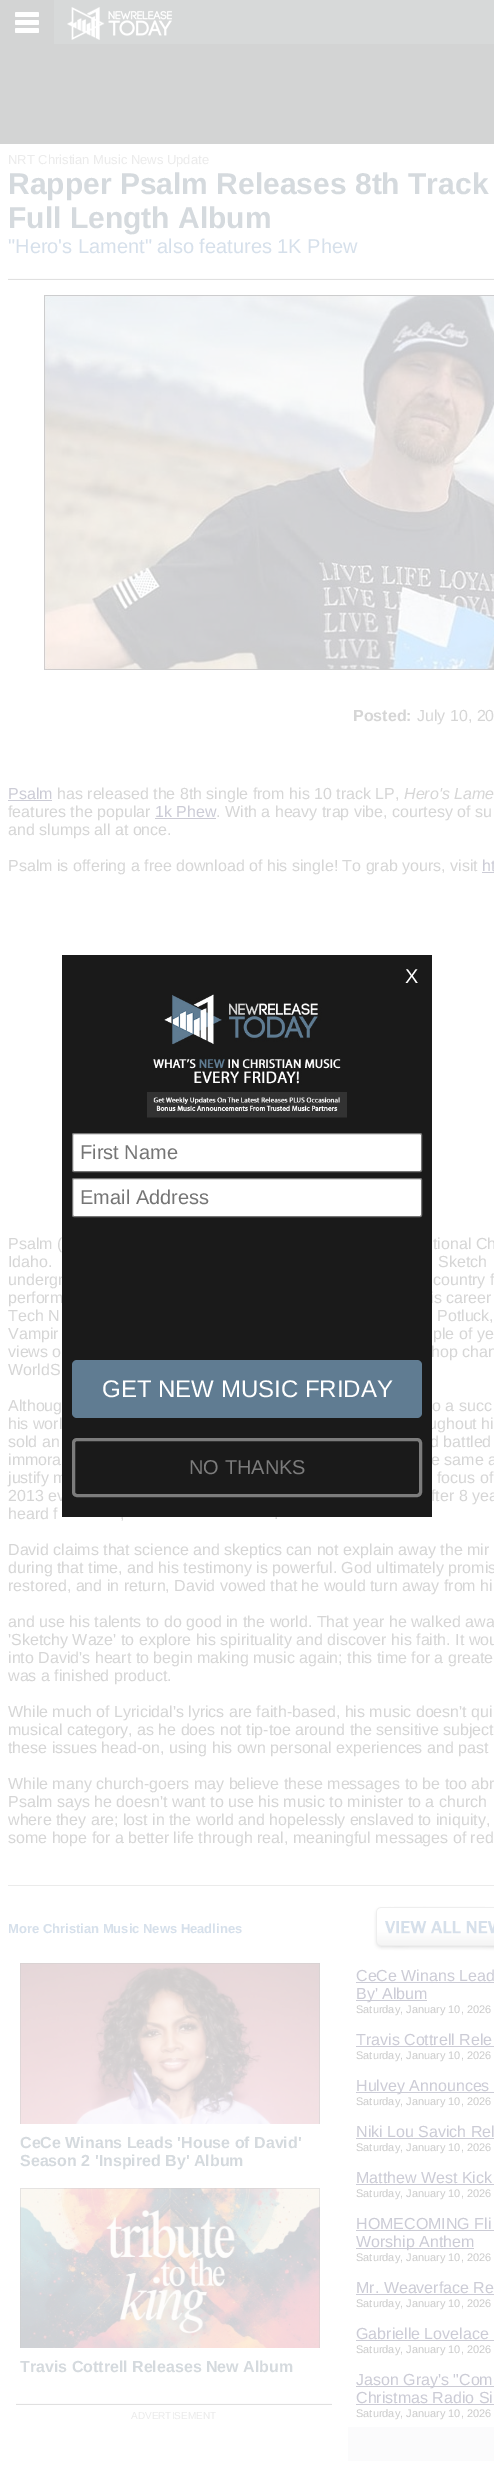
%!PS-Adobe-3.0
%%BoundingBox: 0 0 494 2472
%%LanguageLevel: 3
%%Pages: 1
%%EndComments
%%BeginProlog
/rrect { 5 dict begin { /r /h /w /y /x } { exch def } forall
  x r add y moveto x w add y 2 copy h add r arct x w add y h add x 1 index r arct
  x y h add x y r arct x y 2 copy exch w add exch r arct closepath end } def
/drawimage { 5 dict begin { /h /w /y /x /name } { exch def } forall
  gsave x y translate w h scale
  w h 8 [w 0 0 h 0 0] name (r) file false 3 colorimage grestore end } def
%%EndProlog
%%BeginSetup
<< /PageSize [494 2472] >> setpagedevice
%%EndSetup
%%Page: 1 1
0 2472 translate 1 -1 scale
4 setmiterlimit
0.827 0.831 0.831 setrgbcolor
0 0 494 2472 rectfill
0.843 0.851 0.851 setrgbcolor
54 0 440 44 rectfill
(images/1.raw) 15 12 24 21 drawimage
(images/2.raw) 67 7 105 33 drawimage
1 setgray
0 144 494 2328 rectfill
0.988 setgray
8 278 486 1 rectfill
0.878 setgray
8 279 486 1 rectfill
(images/3.raw) 44 295 450 375 drawimage
0.922 setgray
8 1885 486 1 rectfill
0.8 0.8 0.839 setrgbcolor
8 800 44 1 rectfill
155 818 61 1 rectfill
482 872 12 1 rectfill
(images/4.raw) 373 1906 121 45 drawimage
(images/5.raw) 20 1963 300 161 drawimage
(images/6.raw) 20 2188 300 160 drawimage
0.988 setgray
16 2403 316 1 rectfill
0.878 setgray
16 2404 316 1 rectfill
0.8 0.8 0.839 setrgbcolor
356 1982 138 1 rectfill
356 2000 71 1 rectfill
356 2046 138 1 rectfill
356 2092 138 1 rectfill
356 2138 138 1 rectfill
356 2184 138 1 rectfill
356 2230 138 1 rectfill
356 2248 118 1 rectfill
356 2294 138 1 rectfill
356 2340 138 1 rectfill
356 2386 138 1 rectfill
356 2404 138 1 rectfill
0.984 0.984 0.988 setrgbcolor
348 2427 146 34 rectfill
/LiberationSans-Regular [13 0 0 -13 0 0] selectfont
0.922 setgray
8 164 moveto (NRT Christian Music News Update) show
/LiberationSans-Bold [30 0 0 -30 0 0] selectfont
0.835 0.855 0.871 setrgbcolor
8 194 moveto (Rapper Psalm Releases 8th Track) show
8 228 moveto (Full Length Album) show
/LiberationSans-Regular [20 0 0 -20 0 0] selectfont
0.839 0.878 0.922 setrgbcolor
8 253 moveto ("Hero's Lament" also features 1K Phew) show
/LiberationSans-Bold [16 0 0 -16 0 0] selectfont
0.839 setgray
353 721 moveto (Posted:) show
/LiberationSans-Regular [16 0 0 -16 0 0] selectfont
417 721 moveto (July 10, 20) show
0.8 0.8 0.839 setrgbcolor
8 799 moveto (Psalm) show
0.839 setgray
57 799 moveto (has released the 8th single from his 10 track LP,) show
/LiberationSans-Italic [16 0 0 -16 0 0] selectfont
404 799 moveto (Hero's Lame) show
/LiberationSans-Regular [16 0 0 -16 0 0] selectfont
8 817 moveto (features the popular) show
0.8 0.8 0.839 setrgbcolor
155 817 moveto (1k Phew) show
0.839 setgray
216 817 moveto (. With a heavy trap vibe, courtesy of su) show
8 835 moveto (and slumps all at once.) show
8 871 moveto (Psalm is offering a free download of his single! To grab yours, visit) show
0.8 0.8 0.839 setrgbcolor
482 871 moveto (ht) show
0.839 setgray
8 1249 moveto (Psalm \() show
433 1249 moveto (tional Ch) show
8 1267 moveto (Idaho.) show
438 1267 moveto (Sketch) show
8 1285 moveto (undergr) show
433 1285 moveto (country f) show
8 1303 moveto (perform) show
430 1303 moveto (is career) show
8 1321 moveto (Tech N) show
437 1321 moveto (Potluck,) show
8 1339 moveto (Vampir) show
433 1339 moveto (ple of ye) show
8 1357 moveto (views o) show
431 1357 moveto (hop chan) show
8 1375 moveto (WorldS) show
8 1411 moveto (Althoug) show
432 1411 moveto (o a succ) show
8 1429 moveto (his worl) show
428 1429 moveto (ughout hi) show
8 1447 moveto (sold an) show
430 1447 moveto (d battled) show
8 1465 moveto (immora) show
431 1465 moveto (e same a) show
8 1483 moveto (justify m) show
437 1483 moveto (focus of) show
8 1501 moveto (2013 ev) show
431 1501 moveto (fter 8 yea) show
8 1519 moveto (heard f) show
120 1519 moveto (,) show
274 1519 moveto (.) show
8 1555 moveto (David claims that science and skeptics can not explain away the mir) show
8 1573 moveto (during that time, and his testimony is powerful. God ultimately promis) show
8 1591 moveto (restored, and in return, David vowed that he would turn away from hi) show
8 1627 moveto (and use his talents to do good in the world. That year he walked awa) show
8 1645 moveto ('Sketchy Waze' to explore his spirituality and discover his faith. It wou) show
8 1663 moveto (into David's heart to begin making music again; this time for a greate) show
8 1681 moveto (was a finished product.) show
8 1717 moveto (While much of Lyricidal's lyrics are faith-based, his music doesn't qui) show
8 1735 moveto (musical category, as he does not tip-toe around the sensitive subject) show
8 1753 moveto (these issues head-on, using his own personal experiences and past) show
8 1789 moveto (While many church-goers may believe these messages to be too abr) show
8 1807 moveto (Psalm says he doesn't want to use his music to minister to a church) show
8 1825 moveto (where they are; lost in the world and hopelessly enslaved to iniquity,) show
8 1843 moveto (some hope for a better life through real, meaningful messages of red) show
/LiberationSans-Bold [13 0 0 -13 0 0] selectfont
0.839 0.878 0.922 setrgbcolor
8 1933 moveto (More Christian Music News Headlines) show
/LiberationSans-Bold [16 0 0 -16 0 0] selectfont
0.835 0.855 0.871 setrgbcolor
20 2148 moveto (CeCe Winans Leads 'House of David') show
20 2166 moveto (Season 2 'Inspired By' Album) show
20 2372 moveto (Travis Cottrell Releases New Album) show
/LiberationSans-Regular [10 0 0 -10 0 0] selectfont
0.922 setgray
131 2419 moveto (ADVERTISEMENT) show
/LiberationSans-Regular [16 0 0 -16 0 0] selectfont
0.8 0.8 0.839 setrgbcolor
356 1981 moveto (CeCe Winans Lead) show
356 1999 moveto (By' Album) show
/LiberationSans-Regular [11 0 0 -11 0 0] selectfont
0.8 setgray
356 2013 moveto (Saturday, January 10, 2026) show
/LiberationSans-Regular [16 0 0 -16 0 0] selectfont
0.8 0.8 0.839 setrgbcolor
356 2045 moveto (Travis Cottrell Rele) show
/LiberationSans-Regular [11 0 0 -11 0 0] selectfont
0.8 setgray
356 2059 moveto (Saturday, January 10, 2026) show
/LiberationSans-Regular [16 0 0 -16 0 0] selectfont
0.8 0.8 0.839 setrgbcolor
356 2091 moveto (Hulvey Announces) show
/LiberationSans-Regular [11 0 0 -11 0 0] selectfont
0.8 setgray
356 2105 moveto (Saturday, January 10, 2026) show
/LiberationSans-Regular [16 0 0 -16 0 0] selectfont
0.8 0.8 0.839 setrgbcolor
356 2137 moveto (Niki Lou Savich Rel) show
/LiberationSans-Regular [11 0 0 -11 0 0] selectfont
0.8 setgray
356 2151 moveto (Saturday, January 10, 2026) show
/LiberationSans-Regular [16 0 0 -16 0 0] selectfont
0.8 0.8 0.839 setrgbcolor
356 2183 moveto (Matthew West Kick) show
/LiberationSans-Regular [11 0 0 -11 0 0] selectfont
0.8 setgray
356 2197 moveto (Saturday, January 10, 2026) show
/LiberationSans-Regular [16 0 0 -16 0 0] selectfont
0.8 0.8 0.839 setrgbcolor
356 2229 moveto (HOMECOMING Fli) show
356 2247 moveto (Worship Anthem) show
/LiberationSans-Regular [11 0 0 -11 0 0] selectfont
0.8 setgray
356 2261 moveto (Saturday, January 10, 2026) show
/LiberationSans-Regular [16 0 0 -16 0 0] selectfont
0.8 0.8 0.839 setrgbcolor
356 2293 moveto (Mr. Weaverface Re) show
/LiberationSans-Regular [11 0 0 -11 0 0] selectfont
0.8 setgray
356 2307 moveto (Saturday, January 10, 2026) show
/LiberationSans-Regular [16 0 0 -16 0 0] selectfont
0.8 0.8 0.839 setrgbcolor
356 2339 moveto (Gabrielle Lovelace) show
/LiberationSans-Regular [11 0 0 -11 0 0] selectfont
0.8 setgray
356 2353 moveto (Saturday, January 10, 2026) show
/LiberationSans-Regular [16 0 0 -16 0 0] selectfont
0.8 0.8 0.839 setrgbcolor
356 2385 moveto (Jason Gray's "Com) show
356 2403 moveto (Christmas Radio Si) show
/LiberationSans-Regular [11 0 0 -11 0 0] selectfont
0.8 setgray
356 2417 moveto (Saturday, January 10, 2026) show
0.102 setgray
62 955 370 562 rectfill
/LiberationSans-Regular [20 0 0 -20 0 0] selectfont
1 setgray
405 983 moveto (X) show
(images/7.raw) 147 994 200 124 drawimage
72.5 1133.5 349 38 1.5 rrect gsave fill grestore
0.463 setgray
stroke
0.459 setgray
80 1159 moveto (First Name) show
1 setgray
72.5 1178.5 349 38 1.5 rrect gsave fill grestore
0.463 setgray
stroke
0.459 setgray
80 1204 moveto (Email Address) show
0.376 0.486 0.573 setrgbcolor
72 1360 350 58 5 rrect fill
/LiberationSans-Regular [24 0 0 -24 0 0] selectfont
1 setgray
102 1397 moveto (GET NEW MUSIC FRIDAY) show
0.486 setgray
3 setlinewidth
73.5 1439.5 347 56 3.5 rrect stroke
/LiberationSans-Regular [20 0 0 -20 0 0] selectfont
189 1474 moveto (NO THANKS) show
showpage
%%EOF
